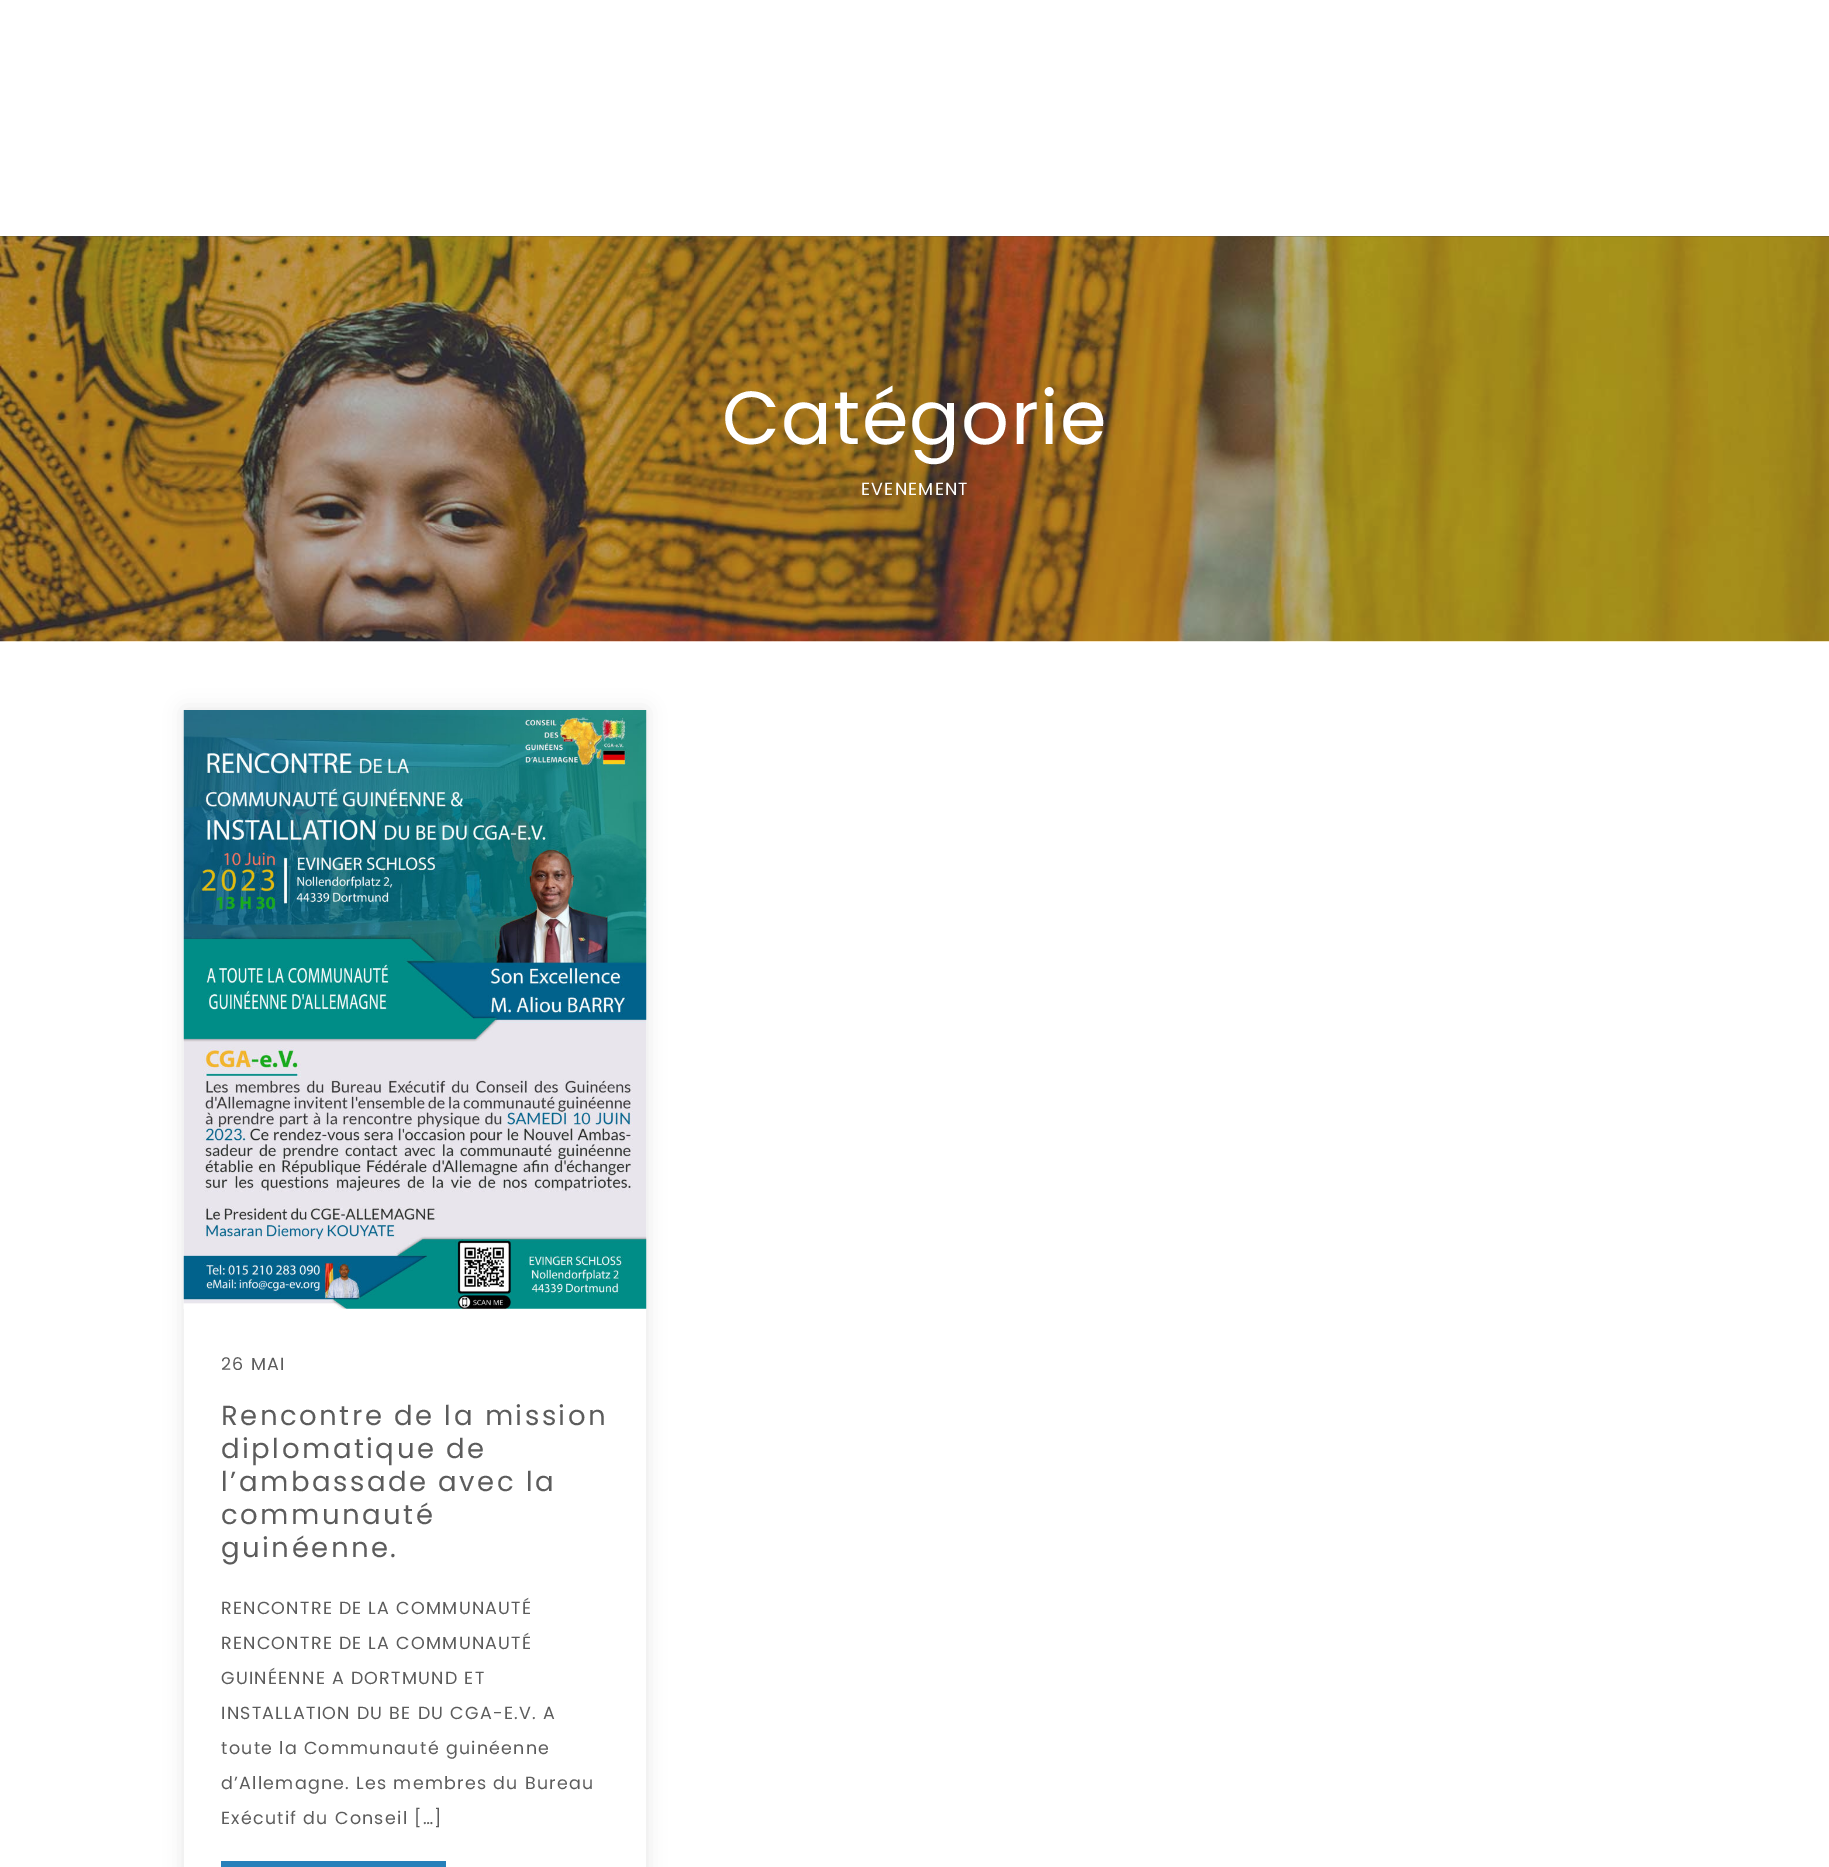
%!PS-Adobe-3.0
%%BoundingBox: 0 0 1829 1867
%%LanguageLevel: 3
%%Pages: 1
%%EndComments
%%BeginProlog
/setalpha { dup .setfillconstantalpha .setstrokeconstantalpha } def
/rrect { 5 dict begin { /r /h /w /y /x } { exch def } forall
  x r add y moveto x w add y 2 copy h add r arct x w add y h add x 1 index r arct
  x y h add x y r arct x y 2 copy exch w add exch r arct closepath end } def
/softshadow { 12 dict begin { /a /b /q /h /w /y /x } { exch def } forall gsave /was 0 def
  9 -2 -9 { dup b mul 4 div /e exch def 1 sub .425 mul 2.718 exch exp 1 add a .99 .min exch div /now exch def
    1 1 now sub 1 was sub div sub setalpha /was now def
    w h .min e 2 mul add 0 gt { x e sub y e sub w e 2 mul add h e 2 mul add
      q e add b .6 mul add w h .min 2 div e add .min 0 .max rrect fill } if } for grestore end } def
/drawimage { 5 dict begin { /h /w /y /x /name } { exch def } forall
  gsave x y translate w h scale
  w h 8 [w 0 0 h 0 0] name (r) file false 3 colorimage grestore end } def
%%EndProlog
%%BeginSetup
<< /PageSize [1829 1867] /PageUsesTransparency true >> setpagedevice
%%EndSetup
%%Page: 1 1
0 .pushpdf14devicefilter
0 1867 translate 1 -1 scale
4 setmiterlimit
1 setgray
0 0 1829 1867 rectfill
(images/1.raw) 0 236 1829 406 drawimage
gsave
newpath 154 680 moveto 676 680 lineto 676 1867 lineto 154 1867 lineto closepath 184 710 moveto 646 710 lineto 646 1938 lineto 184 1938 lineto closepath eoclip newpath
0 setgray
184 710 462 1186 0 9.5 0.1 softshadow
grestore
(images/2.raw) 183 710 464 599 drawimage
0.153 0.502 0.729 setrgbcolor
221 1861 225 6 rectfill
/Poppins-Regular [75 0 0 -75 0 0] selectfont
1 setgray
722 444 moveto 1.25 0 (Catégorie) ashow
/Poppins-Regular [17.5 0 0 -17.5 0 0] selectfont
861 495 moveto 1.25 0 (EVENEMENT) ashow
0.361 setgray
221 1370 moveto 1.25 0 (26 MAI) ashow
/Poppins-Regular [27.5 0 0 -27.5 0 0] selectfont
221 1425 moveto 2.5 0 (Rencontre de la mission) ashow
221 1458 moveto 2.5 0 (diplomatique de) ashow
221 1491 moveto 2.5 0 (l’ambassade avec la) ashow
221 1524 moveto 2.5 0 (communauté) ashow
221 1557 moveto 2.5 0 (guinéenne.) ashow
/Poppins-Regular [17.5 0 0 -17.5 0 0] selectfont
221 1614 moveto 1.25 0 (RENCONTRE DE LA COMMUNAUTÉ) ashow
221 1649 moveto 1.25 0 (RENCONTRE DE LA COMMUNAUTÉ) ashow
221 1684 moveto 1.25 0 (GUINÉENNE A DORTMUND ET) ashow
221 1719 moveto 1.25 0 (INSTALLATION DU BE DU CGA-E.V. A) ashow
221 1754 moveto 1.25 0 (toute la Communauté guinéenne) ashow
221 1789 moveto 1.25 0 (d’Allemagne. Les membres du Bureau) ashow
221 1824 moveto 1.25 0 (Exécutif du Conseil […]) ashow
.poppdf14devicefilter showpage
%%EOF
